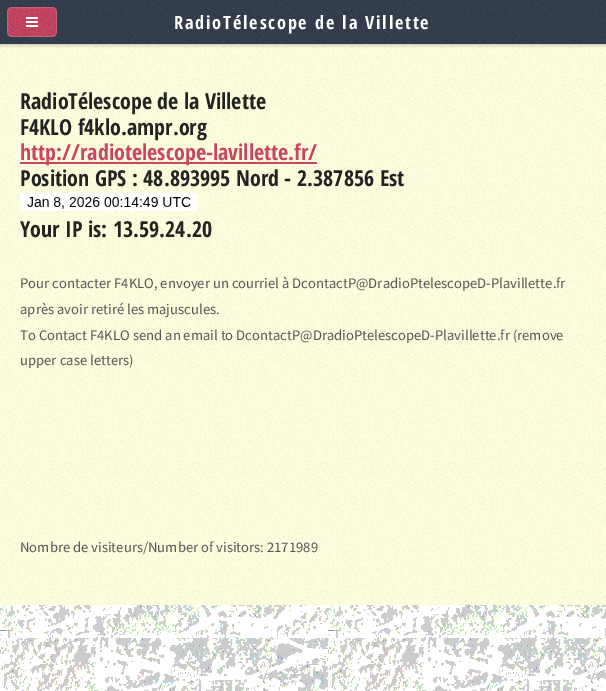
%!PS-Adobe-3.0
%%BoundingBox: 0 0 606 691
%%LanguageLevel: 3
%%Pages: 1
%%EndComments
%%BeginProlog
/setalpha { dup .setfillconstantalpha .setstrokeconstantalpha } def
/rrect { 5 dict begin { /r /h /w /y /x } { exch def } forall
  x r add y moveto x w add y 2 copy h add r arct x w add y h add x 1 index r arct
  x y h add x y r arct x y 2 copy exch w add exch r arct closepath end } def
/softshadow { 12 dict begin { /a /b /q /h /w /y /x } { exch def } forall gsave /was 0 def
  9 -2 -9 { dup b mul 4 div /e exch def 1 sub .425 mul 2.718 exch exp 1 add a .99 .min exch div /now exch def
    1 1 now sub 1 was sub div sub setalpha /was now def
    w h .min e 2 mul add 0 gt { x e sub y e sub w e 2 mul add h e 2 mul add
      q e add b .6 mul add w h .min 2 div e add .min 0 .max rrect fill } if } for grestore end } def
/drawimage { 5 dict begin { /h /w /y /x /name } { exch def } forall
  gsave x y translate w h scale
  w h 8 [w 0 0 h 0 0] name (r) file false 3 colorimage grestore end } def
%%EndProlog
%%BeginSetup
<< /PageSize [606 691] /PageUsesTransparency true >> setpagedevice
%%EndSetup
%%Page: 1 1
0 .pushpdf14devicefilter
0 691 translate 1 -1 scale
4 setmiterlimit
1 setgray
0 0 606 691 rectfill
(images/1.raw) 0 605 606 86 drawimage
0.212 0.251 0.314 setrgbcolor
0 0 606 44 rectfill
(images/2.raw) 0 0 606 44 drawimage
0 setgray
7 7 50 30 5 1 0.25 softshadow
1 1 0.878 setrgbcolor
0 44 606 561 rectfill
(images/5.raw) 0 44 606 561 drawimage
gsave
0 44 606 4 rectclip
0 setgray
0 1 606 44 0 2 0.25 softshadow
grestore
0.788 0.275 0.388 setrgbcolor
7 7 50 30 5 rrect fill
(images/3.raw) 7 7 50 30 drawimage
0.15 setalpha
1 setgray
7.5 7.5 49 29 4.5 rrect stroke
1 setalpha
(images/4.raw) 26 17 12 10 drawimage
0.788 0.275 0.388 setrgbcolor
20 162 297 2 rectfill
(images/6.raw) 20 193 178 18 drawimage
/OpenSansCondensed-Bold [18.3 0 0 -18.3 0 0] selectfont
1 setgray
174 29 moveto 1.8 0 (RadioTélescope de la Villette) ashow
/OpenSansCondensed-Bold [22 0 0 -22 0 0] selectfont
0.137 setgray
20 109 moveto (RadioTélescope de la Villette) show
20 135 moveto (F4KLO f4klo.ampr.org) show
0.788 0.275 0.388 setrgbcolor
20 160 moveto (http://radiotelescope-lavillette.fr/) show
0.137 setgray
20 186 moveto (Position GPS : 48.893995 Nord - 2.387856 Est) show
20 237 moveto (Your IP is: 13.59.24.20) show
/SourceSansPro-Regular [14.65 0 0 -14.65 0 0] selectfont
0.337 setgray
20 288 moveto (Pour contacter F4KLO, envoyer un courriel à DcontactP@DradioPtelescopeD-Plavillette.fr) show
20 314 moveto (après avoir retiré les majuscules.) show
20 340 moveto (To Contact F4KLO send an email to DcontactP@DradioPtelescopeD-Plavillette.fr \(remove) show
20 365 moveto (upper case letters\)) show
20 552 moveto (Nombre de visiteurs/Number of visitors: 2171989) show
.poppdf14devicefilter showpage
%%EOF
